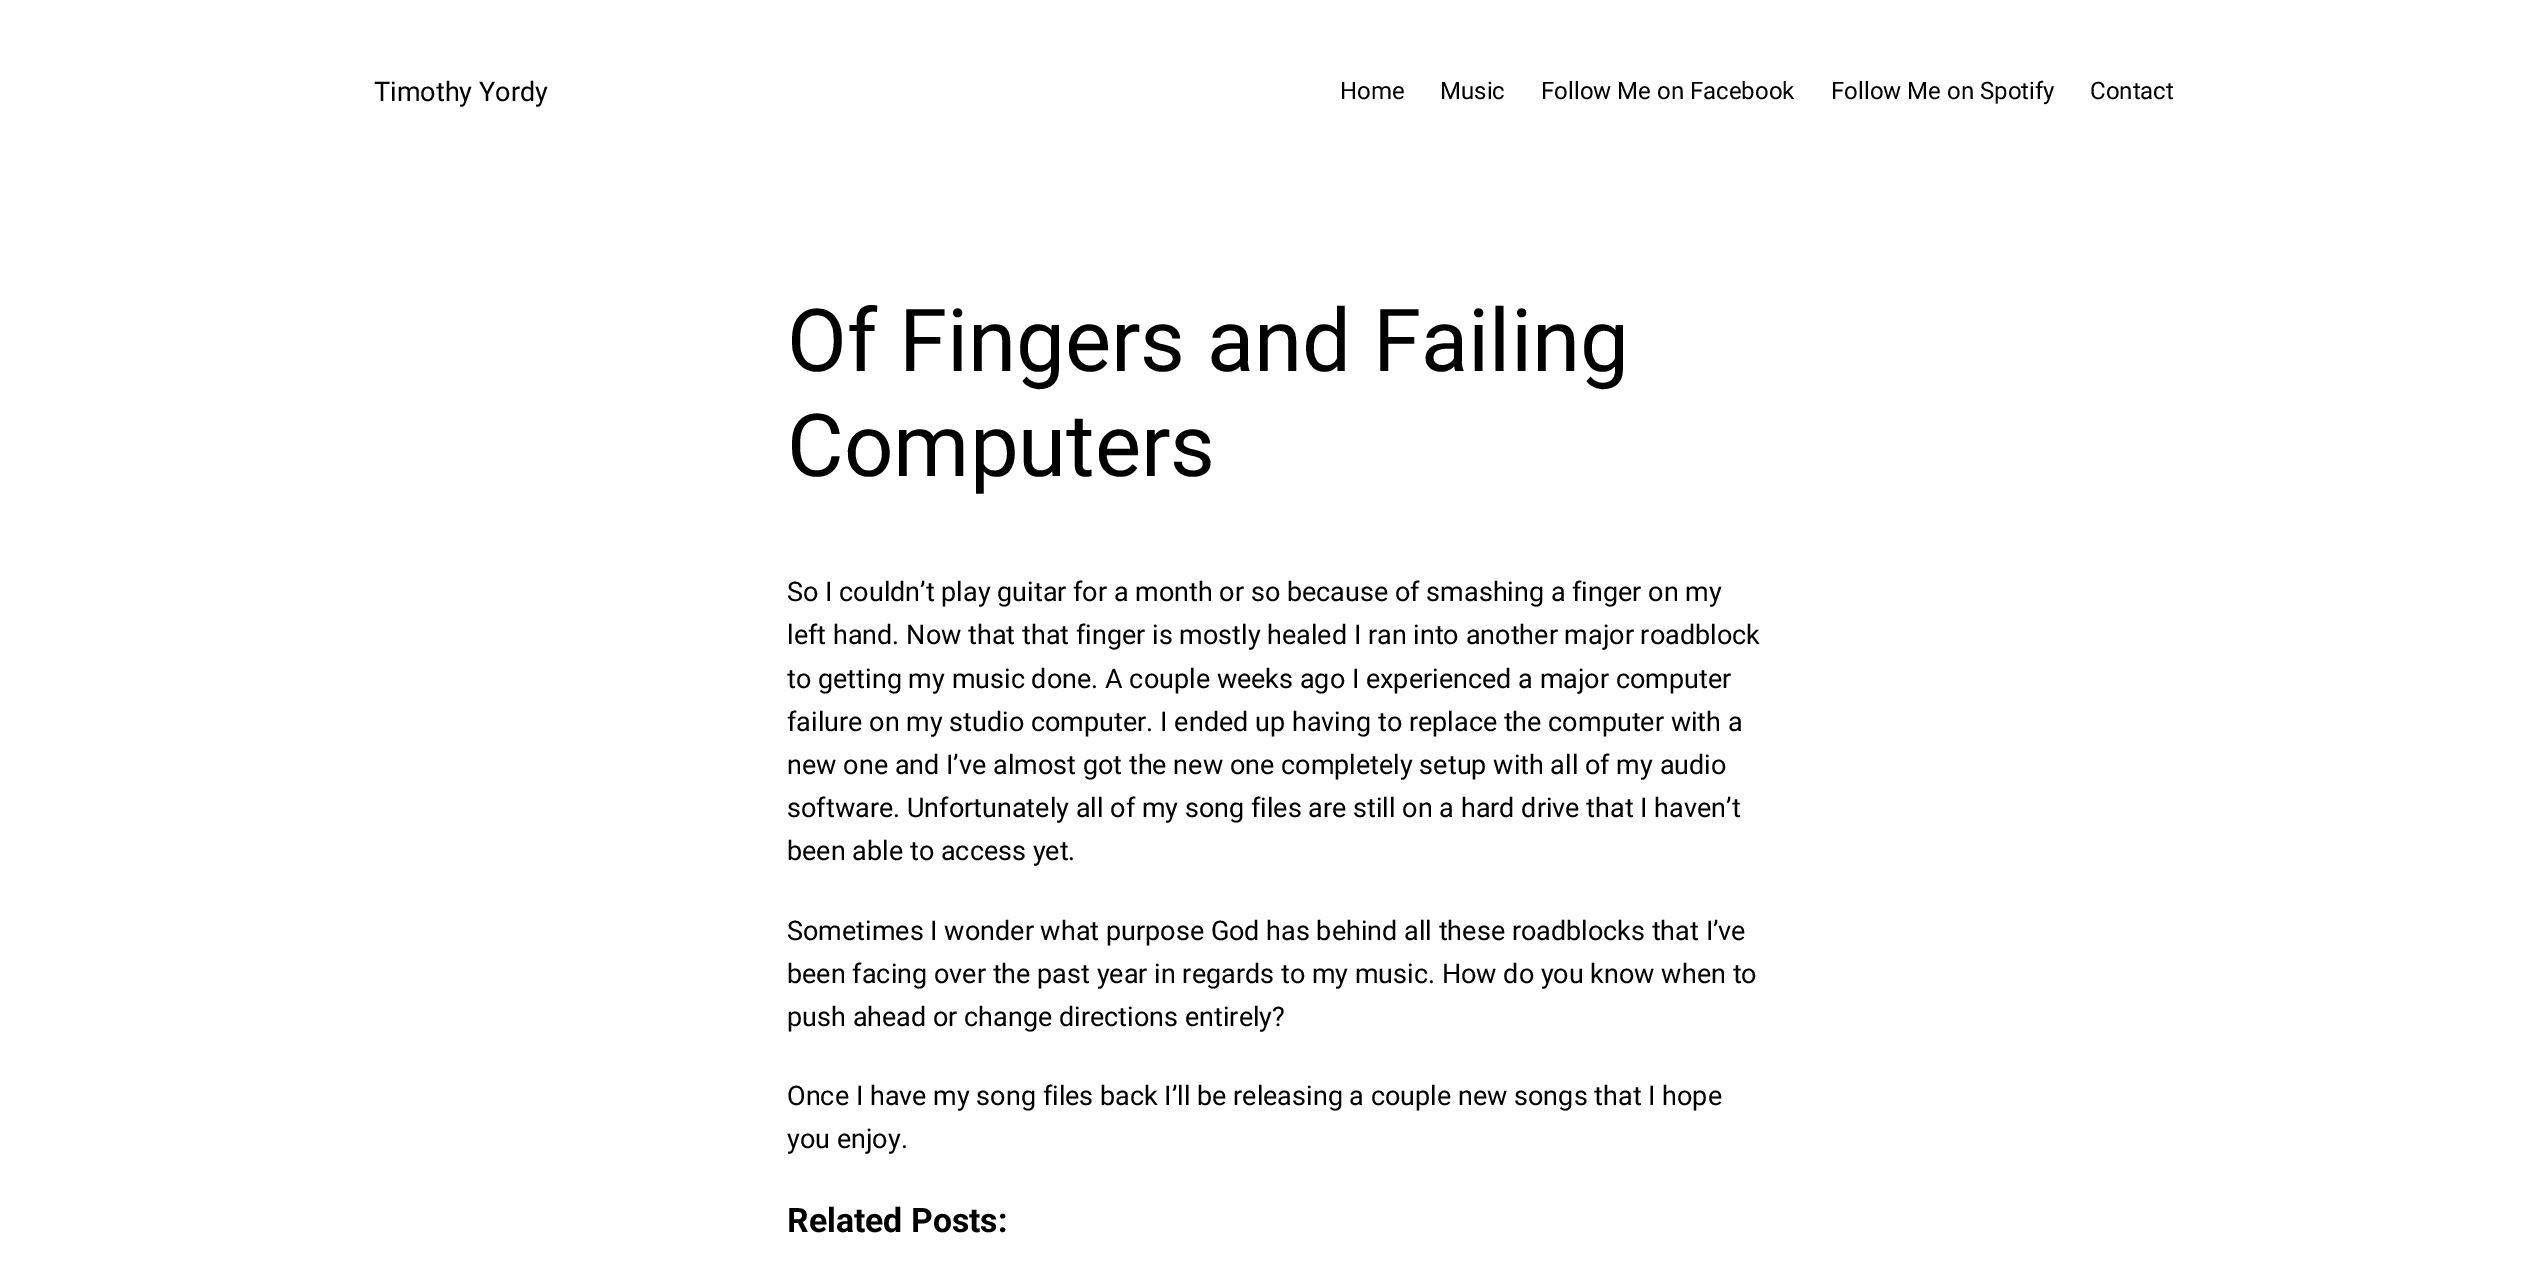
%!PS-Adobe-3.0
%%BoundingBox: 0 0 2548 1268
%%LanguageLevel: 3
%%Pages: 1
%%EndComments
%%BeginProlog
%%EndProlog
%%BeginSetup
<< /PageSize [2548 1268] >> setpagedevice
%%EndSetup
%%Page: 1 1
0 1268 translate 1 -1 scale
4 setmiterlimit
1 setgray
0 0 2548 1268 rectfill
/Roboto-Regular [27 0 0 -27 0 0] selectfont
0 setgray
374 101 moveto (Timothy Yordy) show
/Roboto-Regular [24 0 0 -24 0 0] selectfont
1340 99 moveto (Home) show
1440 99 moveto (Music) show
1541 99 moveto (Follow Me on Facebook) show
1831 99 moveto (Follow Me on Spotify) show
2090 99 moveto (Contact) show
/Roboto-Regular [87 0 0 -87 0 0] selectfont
787 371 moveto (Of Fingers and Failing) show
787 476 moveto (Computers) show
/Roboto-Regular [27 0 0 -27 0 0] selectfont
787 601 moveto (So I couldn’t play guitar for a month or so because of smashing a finger on my) show
787 644 moveto (left hand. Now that that finger is mostly healed I ran into another major roadblock) show
787 688 moveto (to getting my music done. A couple weeks ago I experienced a major computer) show
787 731 moveto (failure on my studio computer. I ended up having to replace the computer with a) show
787 774 moveto (new one and I’ve almost got the new one completely setup with all of my audio) show
787 817 moveto (software. Unfortunately all of my song files are still on a hard drive that I haven’t) show
787 860 moveto (been able to access yet.) show
787 940 moveto (Sometimes I wonder what purpose God has behind all these roadblocks that I’ve) show
787 983 moveto (been facing over the past year in regards to my music. How do you know when to) show
787 1026 moveto (push ahead or change directions entirely?) show
787 1105 moveto (Once I have my song files back I’ll be releasing a couple new songs that I hope) show
787 1148 moveto (you enjoy.) show
/Roboto-Bold [33.75 0 0 -33.75 0 0] selectfont
787 1232 moveto (Related Posts:) show
showpage
%%EOF
